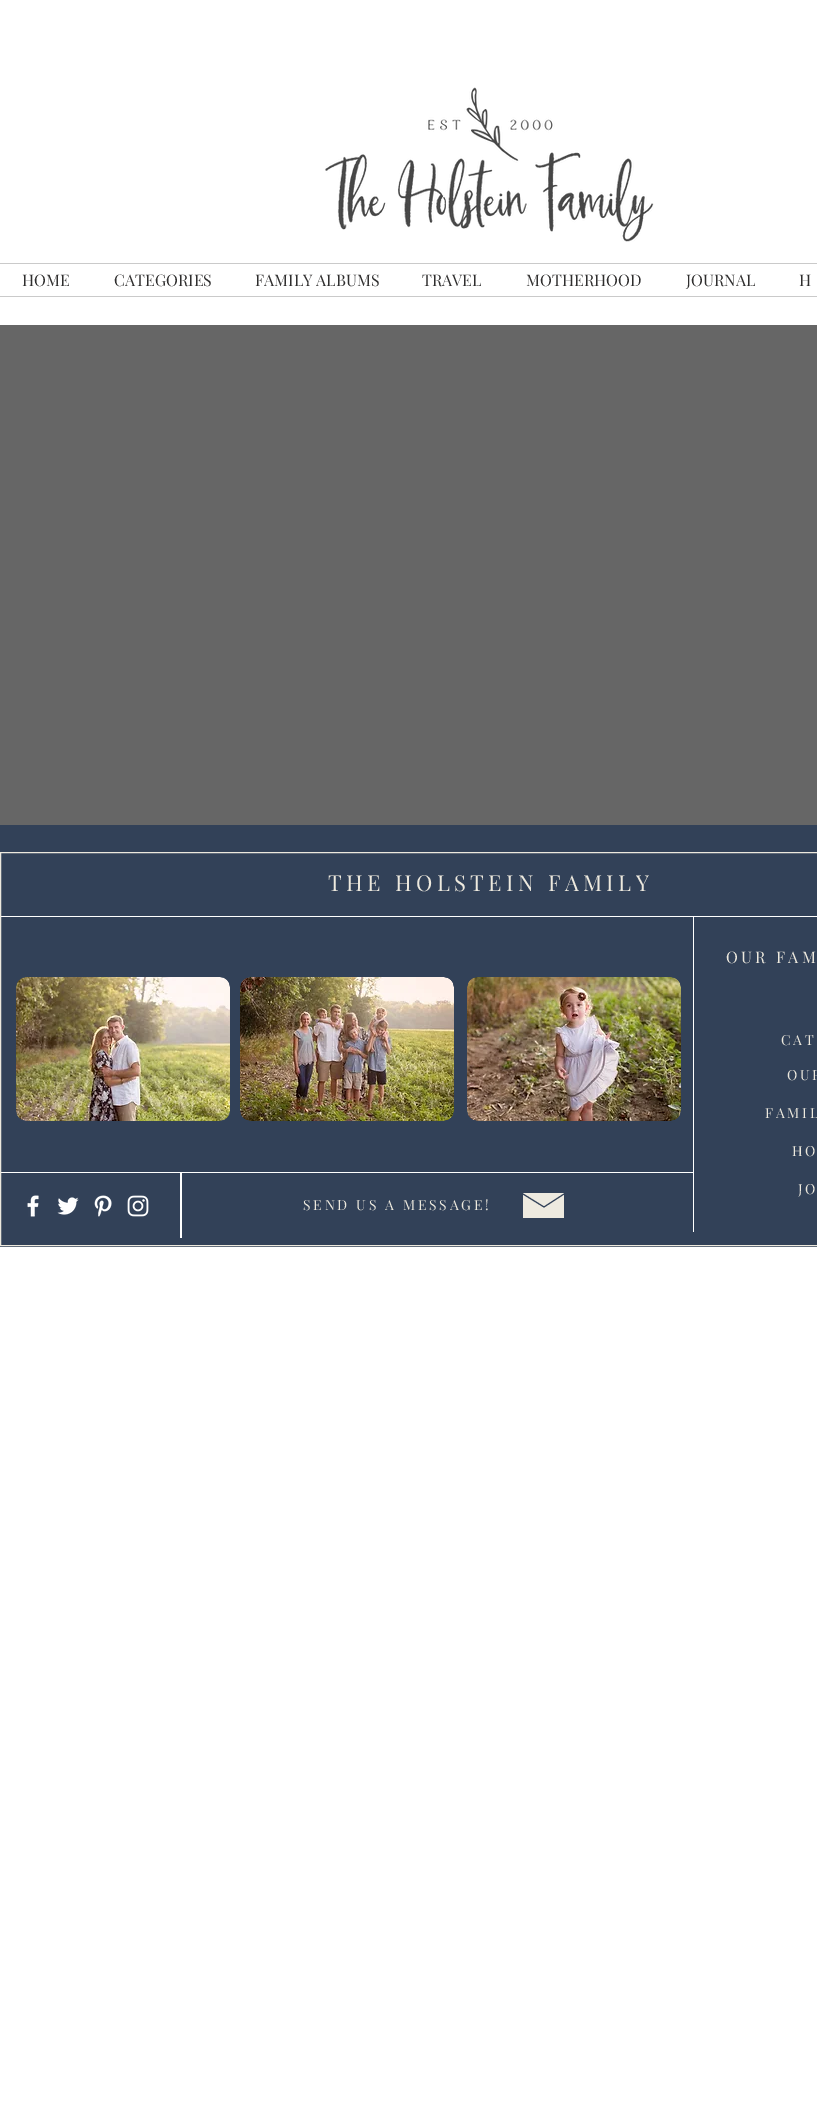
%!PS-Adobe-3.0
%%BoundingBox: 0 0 817 2118
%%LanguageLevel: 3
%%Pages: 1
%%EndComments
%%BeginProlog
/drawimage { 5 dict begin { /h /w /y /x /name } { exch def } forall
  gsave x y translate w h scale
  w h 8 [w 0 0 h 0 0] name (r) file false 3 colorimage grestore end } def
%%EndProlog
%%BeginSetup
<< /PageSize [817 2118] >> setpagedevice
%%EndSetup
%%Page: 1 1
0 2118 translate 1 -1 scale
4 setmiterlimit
1 setgray
0 0 817 2118 rectfill
(images/1.raw) 325 87 329 155 drawimage
0.792 setgray
0 263 817 1 rectfill
0 296 817 1 rectfill
0.4 setgray
0 325 817 500 rectfill
0.196 0.255 0.345 setrgbcolor
0 825 817 422 rectfill
1 setgray
1 916 816 1 rectfill
0 1172 694 1 rectfill
693 917 1 315 rectfill
(images/2.raw) 16 977 214 144 drawimage
(images/3.raw) 240 977 214 144 drawimage
(images/4.raw) 467 977 214 144 drawimage
(images/5.raw) 27 1195 12 22 drawimage
(images/6.raw) 57 1197 22 18 drawimage
(images/7.raw) 94 1195 18 22 drawimage
(images/8.raw) 127 1195 22 22 drawimage
180 1172 2 66 rectfill
0.933 0.918 0.878 setrgbcolor
newpath 544 1206 moveto 523 1193 lineto 564 1193 lineto closepath 564 1195 moveto 544 1208 lineto 523 1195 lineto 523 1218 lineto 564 1218 lineto closepath fill
0.929 0.914 0.871 setrgbcolor
0.5 852.5 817 393 rectstroke
/PlayfairDisplay-Regular [16 0 0 -16 0 0] selectfont
0.184 0.18 0.18 setrgbcolor
22 286 moveto (HOME) show
114 286 moveto (CATEGORIES) show
255 286 moveto (FAMILY ALBUMS) show
422 286 moveto (TRAVEL) show
526 286 moveto (MOTHERHOOD) show
686 286 moveto (JOURNAL) show
799 286 moveto (H) show
/PlayfairDisplay-Regular [22 0 0 -22 0 0] selectfont
0.929 0.914 0.871 setrgbcolor
328 891 moveto 4.4 0 (THE HOLSTEIN FAMILY) ashow
/PlayfairDisplay-Regular [16 0 0 -16 0 0] selectfont
726 963 moveto 3.25 0 (OUR FAM) ashow
/PlayfairDisplay-Regular [14 0 0 -14 0 0] selectfont
781 1045 moveto 2.75 0 (CAT) ashow
787 1080 moveto 2.75 0 (OUR) ashow
765 1118 moveto 2.75 0 (FAMIL) ashow
792 1156 moveto 2.75 0 (HO) ashow
798 1194 moveto 2.75 0 (JO) ashow
303 1210 moveto 2.75 0 (SEND US A MESSAGE!) ashow
showpage
%%EOF
